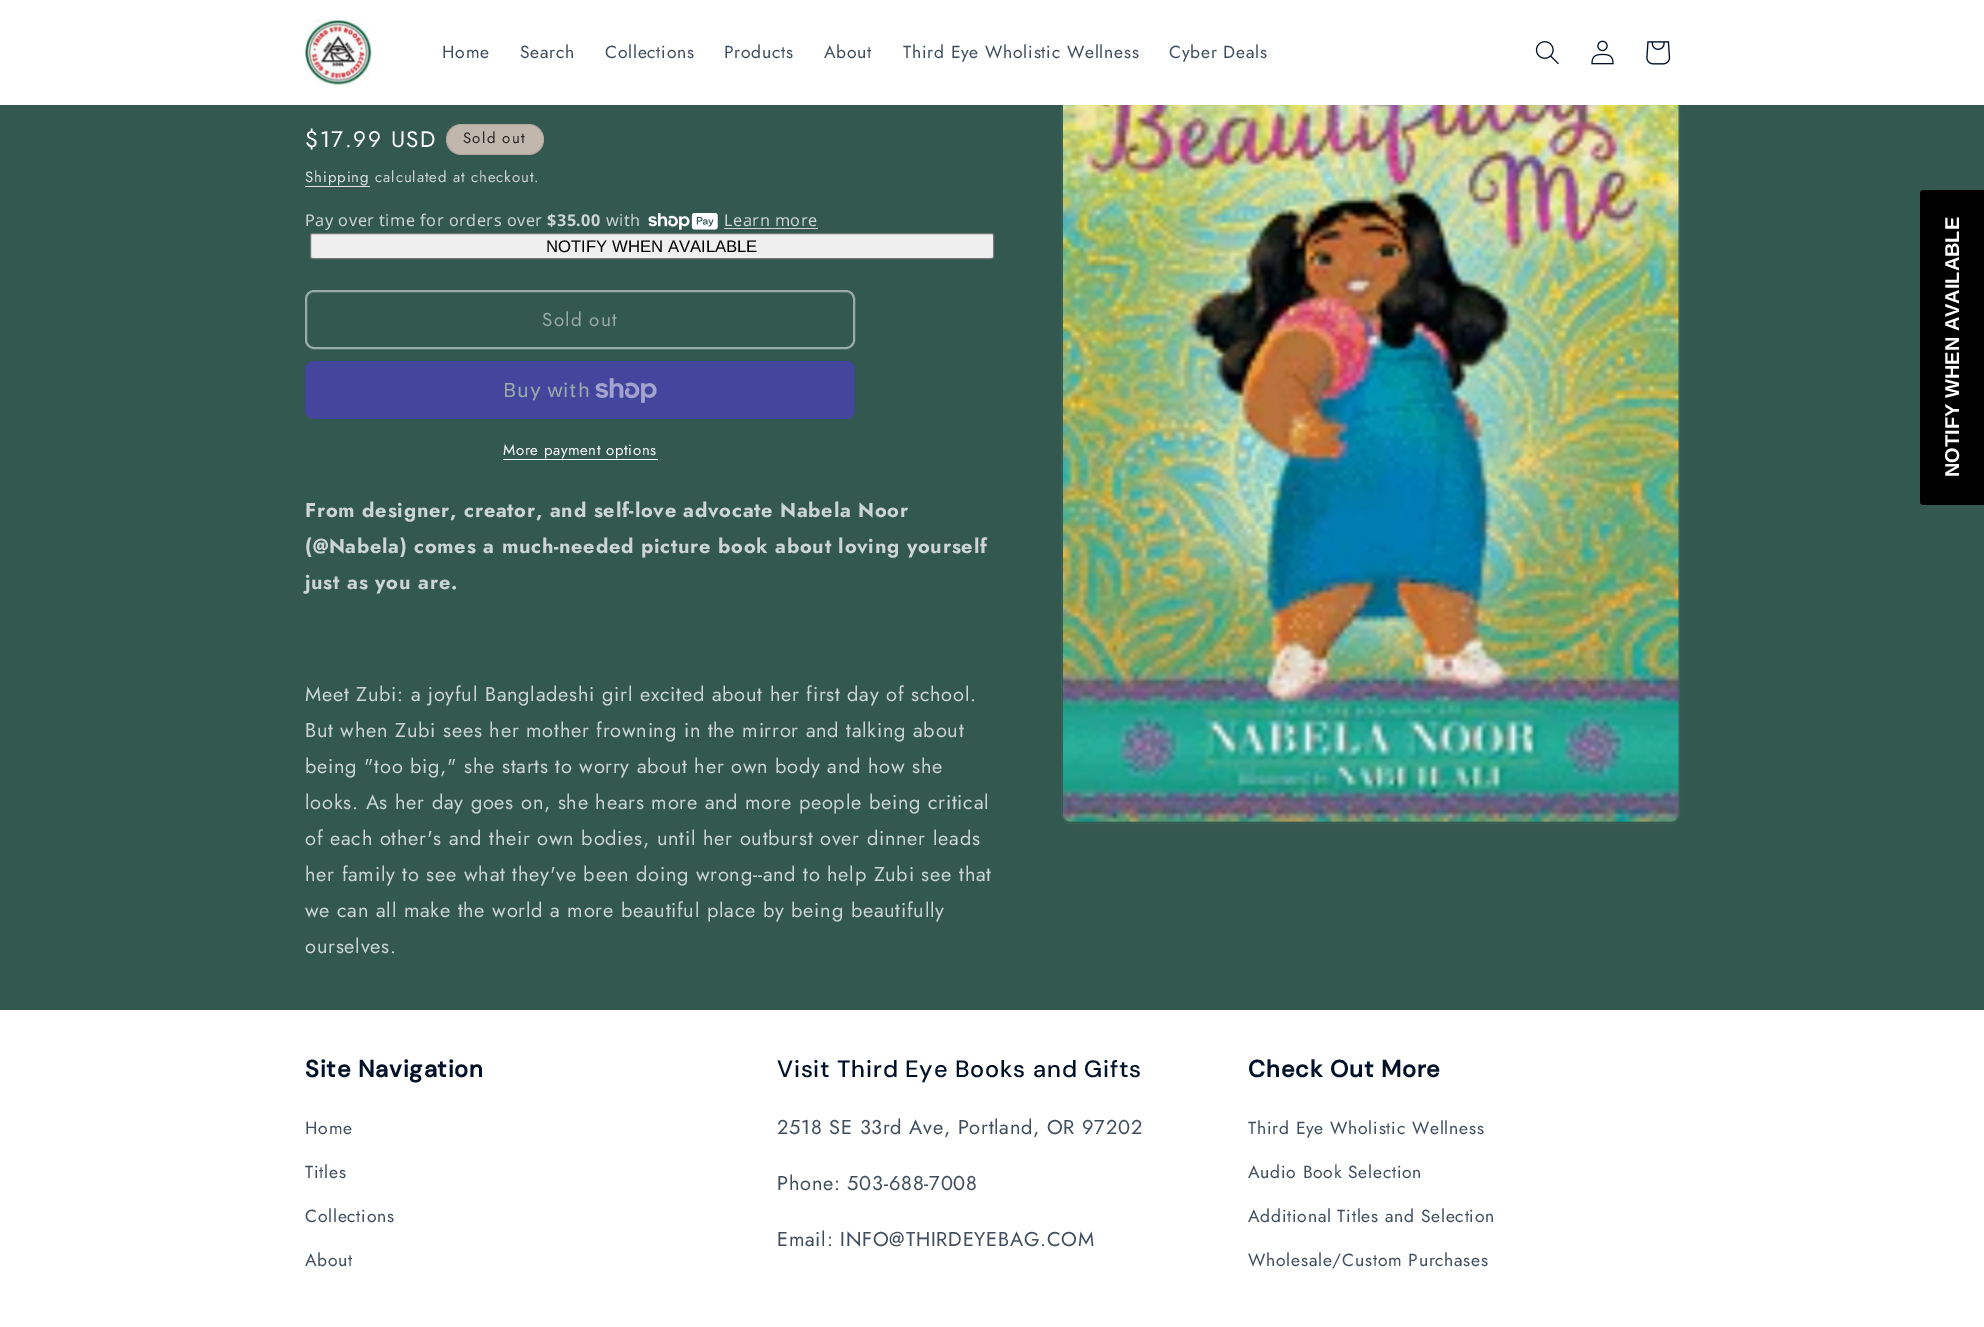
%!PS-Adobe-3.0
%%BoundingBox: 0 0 1984 1327
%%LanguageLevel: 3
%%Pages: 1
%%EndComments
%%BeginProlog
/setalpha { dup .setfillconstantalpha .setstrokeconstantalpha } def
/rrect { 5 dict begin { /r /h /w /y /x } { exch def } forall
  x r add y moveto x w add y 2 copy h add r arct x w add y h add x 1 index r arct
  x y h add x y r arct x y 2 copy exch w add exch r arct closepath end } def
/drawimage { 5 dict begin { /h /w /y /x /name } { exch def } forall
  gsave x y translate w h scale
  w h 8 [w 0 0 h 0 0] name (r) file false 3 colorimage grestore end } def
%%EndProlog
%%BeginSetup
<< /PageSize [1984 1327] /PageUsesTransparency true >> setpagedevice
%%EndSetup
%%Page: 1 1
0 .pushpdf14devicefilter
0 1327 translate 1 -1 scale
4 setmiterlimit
0.2 0.345 0.314 setrgbcolor
0 0 1984 1327 rectfill
0.239 0.376 0.349 setrgbcolor
1061.5 38.5 618 785 9.5 rrect stroke
1 setgray
0 0 1984 105 rectfill
(images/1.raw) 305 19 67 66 drawimage
(images/2.raw) 1535 41 24 24 drawimage
(images/3.raw) 1591 40 23 25 drawimage
(images/4.raw) 1646 41 25 24 drawimage
0.761 0.718 0.675 setrgbcolor
446 124 98 31 15.5 rrect fill
0.1 setalpha
0.149 setgray
446.5 124.5 97 30 15 rrect stroke
1 setalpha
0.875 0.894 0.89 setrgbcolor
305 186 65 1 rectfill
(images/5.raw) 648 213 70 17 drawimage
0.8 0.835 0.827 setrgbcolor
724 228 94 1 rectfill
0.937 setgray
310.5 233.5 683 25 2 rrect gsave fill grestore
0.463 setgray
stroke
0.596 0.671 0.655 setrgbcolor
2 setlinewidth
306 291 548 57 8 rrect stroke
0.267 0.275 0.62 setrgbcolor
305 361 550 58 9 rrect fill
(images/6.raw) 595 378 62 25 drawimage
1 setgray
503 459 155 1 rectfill
(images/7.raw) 1063 105 616 717 drawimage
0 setgray
newpath 1921 501 moveto 1921 194 lineto 1921 193 1922 191 1924 191 curveto 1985 191 lineto 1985 503 lineto 1924 503 lineto 1922 503 1921 502 1921 501 curveto closepath fill
newpath 1920 501 moveto 1920 194 lineto 1920 192 1921 190 1924 190 curveto 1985 190 lineto 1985 505 lineto 1924 505 lineto 1921 505 1920 503 1920 501 curveto closepath 1921 501 moveto 1921 194 lineto 1921 193 1922 191 1924 191 curveto 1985 191 lineto 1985 503 lineto 1924 503 lineto 1922 503 1921 502 1921 501 curveto closepath eofill
1 setgray
0 1010 1984 317 rectfill
/Jost-Regular [17.5 0 0 -17.5 0 0] selectfont
0.251 0.302 0.369 setrgbcolor
442 58 moveto 0.75 0 (Home) ashow
520 58 moveto 0.75 0 (Search) ashow
605 58 moveto 0.75 0 (Collections) ashow
724 58 moveto 0.75 0 (Products) ashow
824 58 moveto 0.75 0 (About) ashow
903 58 moveto 0.75 0 (Third Eye Wholistic Wellness) ashow
1169 58 moveto 0.75 0 (Cyber Deals) ashow
/Jost-Regular [22.5 0 0 -22.5 0 0] selectfont
1 setgray
305 147 moveto 1.6 0 ($17.99 USD) ashow
/Jost-Regular [15 0 0 -15 0 0] selectfont
0.149 setgray
463 143 moveto 1.25 0 (Sold out) ashow
0.875 0.894 0.89 setrgbcolor
305 182 moveto 0.9 0 (Shipping) ashow
0.8 0.835 0.827 setrgbcolor
375 182 moveto 0.9 0 (calculated at checkout.) ashow
/NotoSans-Regular [16.25 0 0 -16.25 0 0] selectfont
305 226 moveto 0.5 0 (Pay over time for orders over) ashow
/NotoSans-Bold [16.25 0 0 -16.25 0 0] selectfont
547 226 moveto 0.5 0 ($35.00) ashow
/NotoSans-Regular [16.25 0 0 -16.25 0 0] selectfont
606 226 moveto 0.5 0 (with) ashow
724 226 moveto 0.5 0 (Learn more) ashow
/LiberationSans-Regular [16.7 0 0 -16.7 0 0] selectfont
0 setgray
546 252 moveto (NOTIFY WHEN AVAILABLE) show
/Jost-Regular [18.75 0 0 -18.75 0 0] selectfont
0.596 0.671 0.655 setrgbcolor
542 326 moveto 1.25 0 (Sold out) ashow
/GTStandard-Regular [20 0 0 -20 0 0] selectfont
503 397 moveto 0.75 0 (Buy with) ashow
/Jost-Regular [15 0 0 -15 0 0] selectfont
1 setgray
503 455 moveto 0.6 0 (More payment options) ashow
/Jost-Bold [20 0 0 -20 0 0] selectfont
0.8 0.835 0.827 setrgbcolor
305 517 moveto 0.75 0 (From designer, creator, and self-love advocate Nabela Noor) ashow
305 553 moveto 0.75 0 (\(@Nabela\) comes a much-needed picture book about loving yourself) ashow
305 589 moveto 0.75 0 (just as you are.) ashow
/Jost-Regular [20 0 0 -20 0 0] selectfont
305 701 moveto 0.75 0 (Meet Zubi: a joyful Bangladeshi girl excited about her first day of school.) ashow
305 737 moveto 0.75 0 (But when Zubi sees her mother frowning in the mirror and talking about) ashow
305 773 moveto 0.75 0 (being "too big," she starts to worry about her own body and how she) ashow
305 809 moveto 0.75 0 (looks. As her day goes on, she hears more and more people being critical) ashow
305 845 moveto 0.75 0 (of each other's and their own bodies, until her outburst over dinner leads) ashow
305 881 moveto 0.75 0 (her family to see what they've been doing wrong--and to help Zubi see that) ashow
305 917 moveto 0.75 0 (we can all make the world a more beautiful place by being beautifully) ashow
305 953 moveto 0.75 0 (ourselves.) ashow
/LiberationSans-Bold [20 0 0 -20 0 0] selectfont
1 setgray
gsave 1959 477 translate -90 rotate 0 0 moveto (NOTIFY WHEN AVAILABLE) show grestore
/DMSans-Bold [23.6 0 0 -23.6 0 0] selectfont
0 0.067 0.157 setrgbcolor
305 1077 moveto 0.8 0 (Site Navigation) ashow
/Jost-Regular [17.5 0 0 -17.5 0 0] selectfont
0.251 0.302 0.369 setrgbcolor
305 1134 moveto 0.75 0 (Home) ashow
305 1178 moveto 0.75 0 (Titles) ashow
305 1222 moveto 0.75 0 (Collections) ashow
305 1266 moveto 0.75 0 (About) ashow
/DMSans-Medium [23.6 0 0 -23.6 0 0] selectfont
0 0.067 0.157 setrgbcolor
777 1077 moveto 0.8 0 (Visit Third Eye Books and Gifts) ashow
/Jost-Regular [20 0 0 -20 0 0] selectfont
0.251 0.302 0.369 setrgbcolor
777 1134 moveto 0.75 0 (2518 SE 33rd Ave, Portland, OR 97202) ashow
777 1190 moveto 0.75 0 (Phone: 503-688-7008) ashow
777 1246 moveto 0.75 0 (Email: INFO@THIRDEYEBAG.COM) ashow
/DMSans-Bold [23.6 0 0 -23.6 0 0] selectfont
0 0.067 0.157 setrgbcolor
1248 1077 moveto 0.8 0 (Check Out More) ashow
/Jost-Regular [17.5 0 0 -17.5 0 0] selectfont
0.251 0.302 0.369 setrgbcolor
1248 1134 moveto 0.75 0 (Third Eye Wholistic Wellness) ashow
1248 1178 moveto 0.75 0 (Audio Book Selection) ashow
1248 1222 moveto 0.75 0 (Additional Titles and Selection) ashow
1248 1266 moveto 0.75 0 (Wholesale/Custom Purchases) ashow
.poppdf14devicefilter showpage
%%EOF
